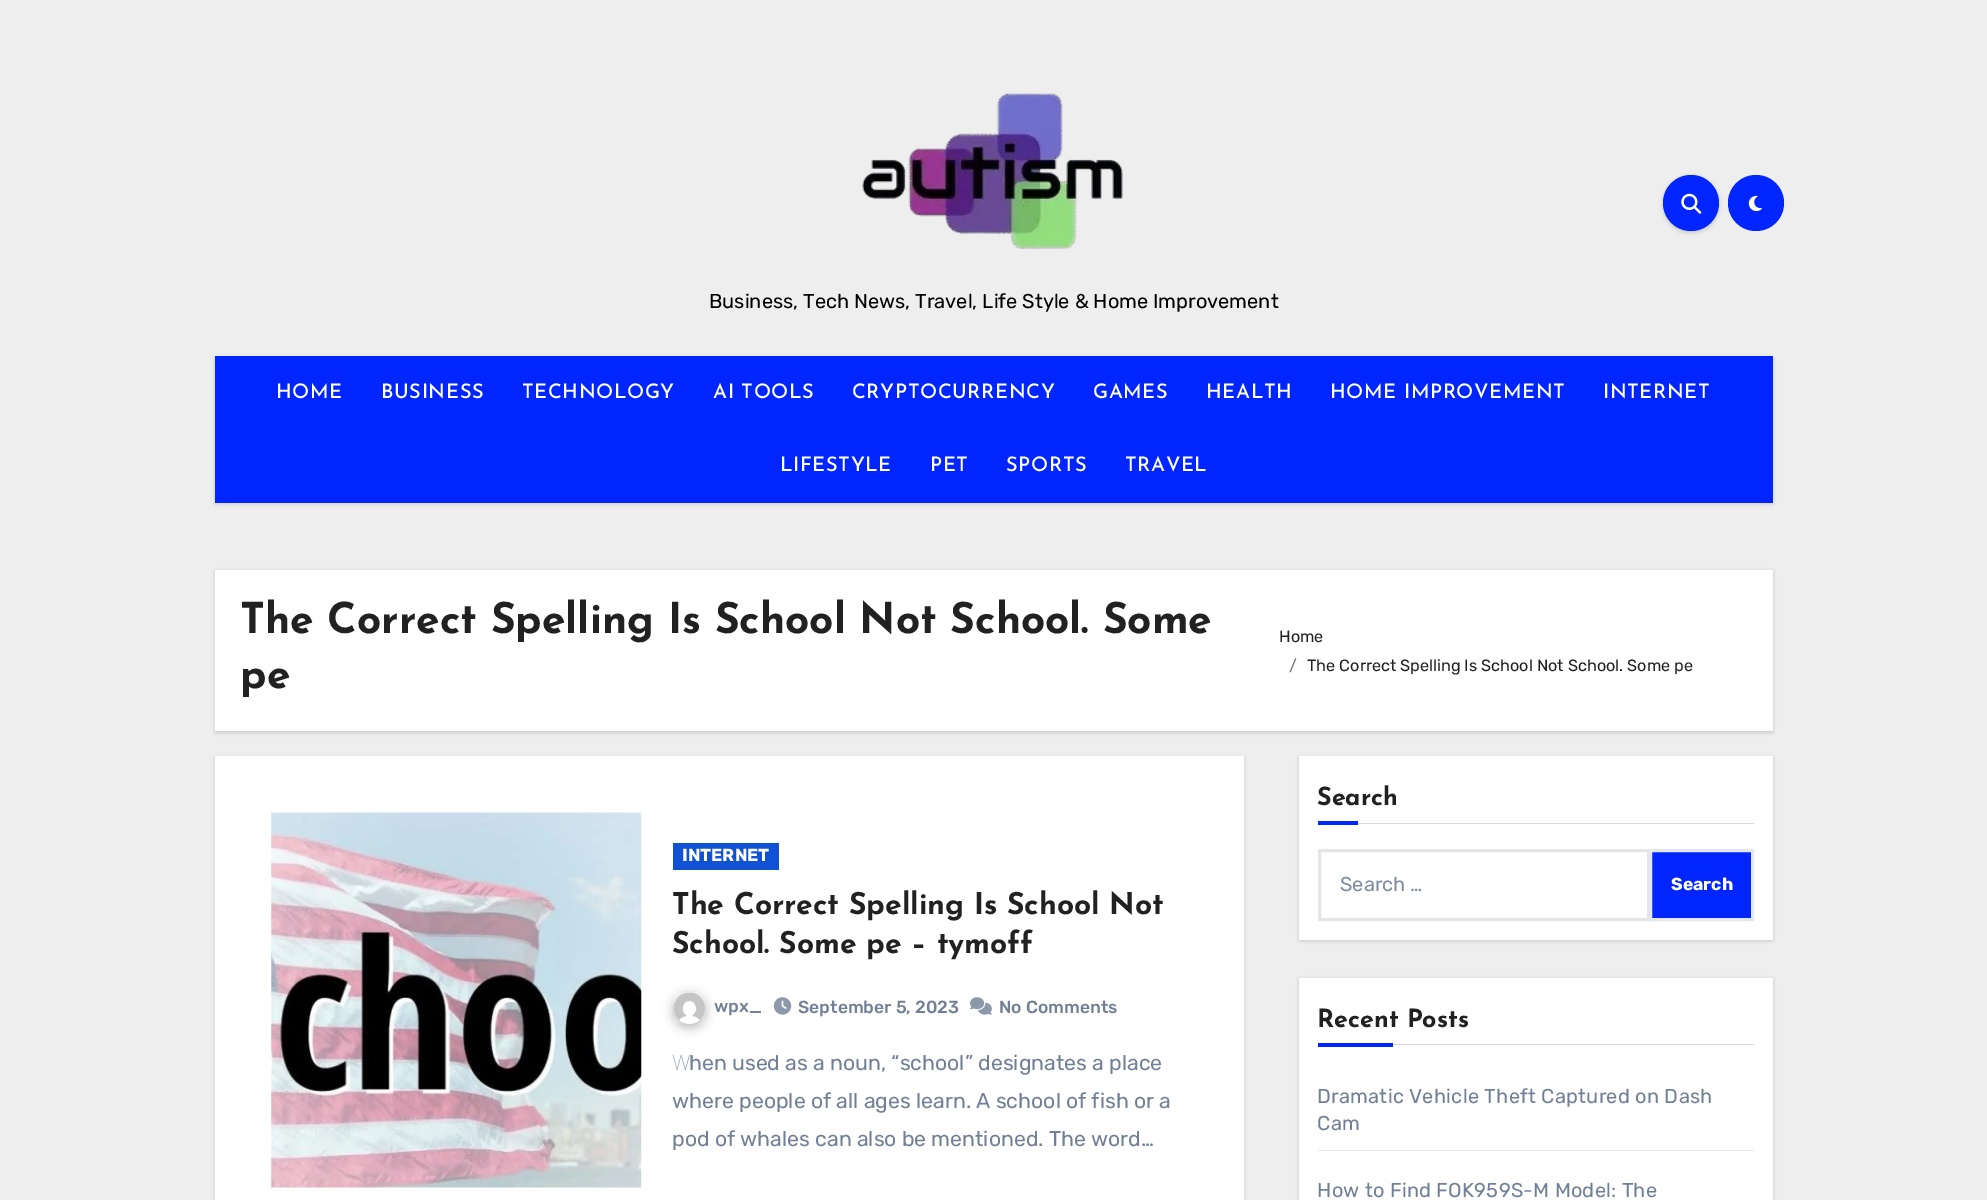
%!PS-Adobe-3.0
%%BoundingBox: 0 0 1987 1200
%%LanguageLevel: 3
%%Pages: 1
%%EndComments
%%BeginProlog
/setalpha { dup .setfillconstantalpha .setstrokeconstantalpha } def
/rrect { 5 dict begin { /r /h /w /y /x } { exch def } forall
  x r add y moveto x w add y 2 copy h add r arct x w add y h add x 1 index r arct
  x y h add x y r arct x y 2 copy exch w add exch r arct closepath end } def
/softshadow { 12 dict begin { /a /b /q /h /w /y /x } { exch def } forall gsave /was 0 def
  9 -2 -9 { dup b mul 4 div /e exch def 1 sub .425 mul 2.718 exch exp 1 add a .99 .min exch div /now exch def
    1 1 now sub 1 was sub div sub setalpha /was now def
    w h .min e 2 mul add 0 gt { x e sub y e sub w e 2 mul add h e 2 mul add
      q e add b .6 mul add w h .min 2 div e add .min 0 .max rrect fill } if } for grestore end } def
/drawimage { 5 dict begin { /h /w /y /x /name } { exch def } forall
  gsave x y translate w h scale
  w h 8 [w 0 0 h 0 0] name (r) file false 3 colorimage grestore end } def
%%EndProlog
%%BeginSetup
<< /PageSize [1987 1200] /PageUsesTransparency true >> setpagedevice
%%EndSetup
%%Page: 1 1
0 .pushpdf14devicefilter
0 1200 translate 1 -1 scale
4 setmiterlimit
0.933 setgray
0 0 1987 1200 rectfill
0 setgray
1663 176 56 57 28 2 0.15 softshadow
0 0.145 1 setrgbcolor
newpath 1691 203 28 0 360 arc closepath fill
(images/1.raw) 1681 193 21 21 drawimage
newpath 1756 203 28 0 360 arc closepath fill
(images/2.raw) 1748 195 14 17 drawimage
(images/3.raw) 862 93 261 157 drawimage
0 setgray
215 358 1558 146 0 2 0.15 softshadow
0 0.145 1 setrgbcolor
215 356 1558 147 rectfill
0 setgray
215 571 1558 162 0 2 0.15 softshadow
1 setgray
215 570 1558 161 rectfill
0 setgray
215 758 1029 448 0 2 0.15 softshadow
1 setgray
215 756 1029 444 rectfill
(images/4.raw) 271 812 371 376 drawimage
0.067 0.318 0.827 setrgbcolor
673 843 106 27 rectfill
0.129 setgray
673 994 33 34 16.5 5 0.3 softshadow
(images/5.raw) 674 992 31 32 drawimage
(images/6.raw) 773 997 19 18 drawimage
(images/7.raw) 970 997 22 18 drawimage
0 setgray
1299 758 474 183 0 2 0.15 softshadow
1 setgray
1299 756 474 184 rectfill
0.843 setgray
1358 823 396 1 rectfill
0 0.145 1 setrgbcolor
1318 821 40 4 rectfill
0.898 setgray
3 setlinewidth
1319.5 850.5 329 69 rectstroke
0 0.145 1 setrgbcolor
newpath 1650.5 850.5 moveto 1752.5 850.5 lineto 1752.5 919.5 lineto 1650.5 919.5 lineto closepath gsave fill grestore
0.886 0.91 0.941 setrgbcolor
stroke
0 setgray
1299 979 474 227 0 2 0.15 softshadow
1 setgray
1299 978 474 222 rectfill
0.843 setgray
1393 1044 361 1 rectfill
0 0.145 1 setrgbcolor
1318 1043 75 4 rectfill
0.886 0.91 0.941 setrgbcolor
1318 1150 436 1 rectfill
/Rubik-Light [20 0 0 -20 0 0] selectfont
0 setgray
709 308 moveto (Business, Tech News, Travel, Life Style & Home Improvement) show
/JosefinSans-Medium [20 0 0 -20 0 0] selectfont
1 setgray
276 398 moveto 0.6 0 (HOME) ashow
381 398 moveto 0.6 0 (BUSINESS) ashow
522 398 moveto 0.6 0 (TECHNOLOGY) ashow
713 398 moveto 0.6 0 (AI TOOLS) ashow
852 398 moveto 0.6 0 (CRYPTOCURRENCY) ashow
1093 398 moveto 0.6 0 (GAMES) ashow
1206 398 moveto 0.6 0 (HEALTH) ashow
1330 398 moveto 0.6 0 (HOME IMPROVEMENT) ashow
1603 398 moveto 0.6 0 (INTERNET) ashow
780 471 moveto 0.6 0 (LIFESTYLE) ashow
930 471 moveto 0.6 0 (PET) ashow
1006 471 moveto 0.6 0 (SPORTS) ashow
1125 471 moveto 0.6 0 (TRAVEL) ashow
/JosefinSans-Bold [42.5 0 0 -42.5 0 0] selectfont
0.129 setgray
240 633 moveto (The Correct Spelling Is School Not School. Some) show
240 688 moveto (pe) show
/Rubik-Light [16.25 0 0 -16.25 0 0] selectfont
1279 642 moveto (Home) show
0.424 0.459 0.49 setrgbcolor
1289 671 moveto (/) show
0.129 setgray
1307 671 moveto (The Correct Spelling Is School Not School. Some pe) show
/Rubik-Bold [17.5 0 0 -17.5 0 0] selectfont
1 setgray
682 861 moveto (INTERNET) show
/JosefinSans-Bold [30 0 0 -30 0 0] selectfont
0.129 setgray
672 914 moveto (The Correct Spelling Is School Not) show
672 953 moveto (School. Some pe – tymoff) show
/Rubik-Medium [17.5 0 0 -17.5 0 0] selectfont
0.443 0.502 0.588 setrgbcolor
714 1012 moveto (wpx_) show
798 1013 moveto (September 5, 2023) show
999 1013 moveto (No Comments) show
/NotoSans-Thin [21.25 0 0 -21.25 0 0] selectfont
672 1070 moveto (W) show
/Rubik-Light [21.25 0 0 -21.25 0 0] selectfont
689 1070 moveto (hen used as a noun, “school” designates a place) show
672 1108 moveto (where people of all ages learn. A school of fish or a) show
672 1146 moveto (pod of whales can also be mentioned. The word…) show
/JosefinSans-Bold [25 0 0 -25 0 0] selectfont
0.129 setgray
1317 805 moveto (Search) show
/Rubik-Light [20 0 0 -20 0 0] selectfont
0.498 0.553 0.631 setrgbcolor
1340 891 moveto (Search …) show
/Rubik-Bold [17.5 0 0 -17.5 0 0] selectfont
1 setgray
1671 890 moveto (Search) show
/JosefinSans-Bold [25 0 0 -25 0 0] selectfont
0.129 setgray
1317 1027 moveto (Recent Posts) show
/Rubik-Light [20 0 0 -20 0 0] selectfont
0.443 0.502 0.588 setrgbcolor
1317 1103 moveto 0.25 0 (Dramatic Vehicle Theft Captured on Dash) ashow
1317 1130 moveto 0.25 0 (Cam) ashow
1317 1197 moveto 0.25 0 (How to Find FOK959S-M Model: The) ashow
.poppdf14devicefilter showpage
%%EOF
